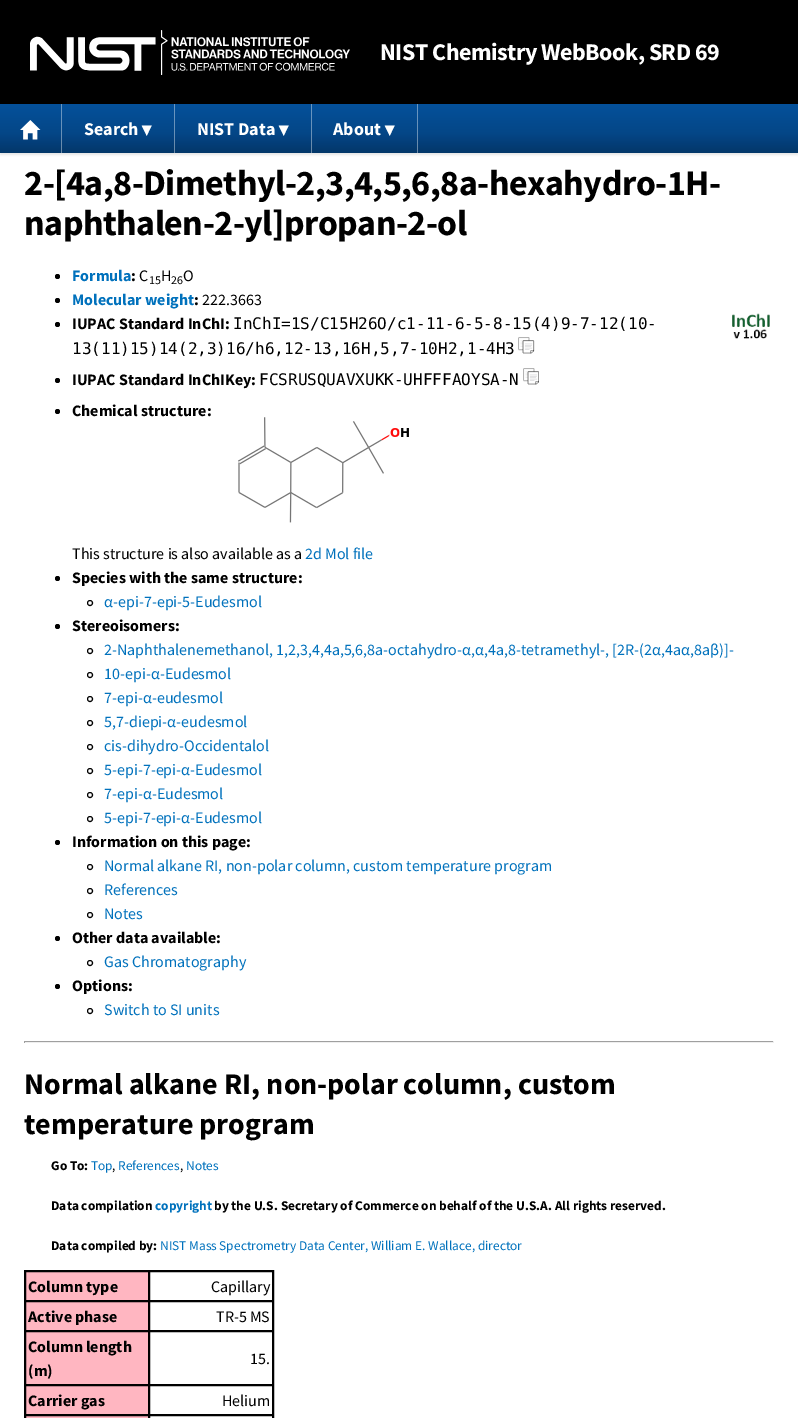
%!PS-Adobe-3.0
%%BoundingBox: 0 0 798 1418
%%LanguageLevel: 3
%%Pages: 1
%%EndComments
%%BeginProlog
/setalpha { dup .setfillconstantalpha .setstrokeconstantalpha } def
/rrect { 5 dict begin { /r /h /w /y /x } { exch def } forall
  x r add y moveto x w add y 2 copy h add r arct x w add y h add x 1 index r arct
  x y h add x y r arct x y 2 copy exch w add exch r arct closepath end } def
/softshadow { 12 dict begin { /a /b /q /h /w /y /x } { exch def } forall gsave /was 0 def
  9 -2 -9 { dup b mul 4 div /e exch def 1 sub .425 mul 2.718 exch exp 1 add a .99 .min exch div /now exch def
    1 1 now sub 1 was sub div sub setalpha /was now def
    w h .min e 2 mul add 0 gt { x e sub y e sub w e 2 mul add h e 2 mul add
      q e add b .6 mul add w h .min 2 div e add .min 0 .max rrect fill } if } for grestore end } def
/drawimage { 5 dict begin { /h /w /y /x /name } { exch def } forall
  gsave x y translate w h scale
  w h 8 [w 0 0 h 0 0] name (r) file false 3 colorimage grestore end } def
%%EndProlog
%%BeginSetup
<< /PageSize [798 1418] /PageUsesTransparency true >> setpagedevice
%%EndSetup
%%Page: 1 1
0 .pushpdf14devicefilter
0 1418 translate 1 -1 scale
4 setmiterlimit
1 setgray
0 0 798 1418 rectfill
0 setgray
0 106 798 49 0 1 0.1 softshadow
0 0 798 104 rectfill
(images/1.raw) 30 30 320 45 drawimage
gsave newpath 0 104 moveto 798 104 lineto 798 153 lineto 0 153 lineto closepath clip newpath
<< /ShadingType 2 /ColorSpace /DeviceRGB /Coords [399 104 399 153] /Extend [true true] /Function << /FunctionType 3 /Domain [0 1] /Functions [<< /FunctionType 2 /Domain [0 1] /C0 [0.016 0.318 0.608] /C1 [0.016 0.275 0.529] /N 1 >> << /FunctionType 2 /Domain [0 1] /C0 [0.016 0.275 0.529] /C1 [0.012 0.216 0.412] /N 1 >>] /Bounds [0.6] /Encode [0 1 0 1] >> >> shfill grestore
gsave newpath 417 104 moveto 418 104 lineto 418 153 lineto 417 153 lineto closepath clip newpath
<< /ShadingType 2 /ColorSpace /DeviceRGB /Coords [399 104 399 153] /Extend [true true] /Function << /FunctionType 3 /Domain [0 1] /Functions [<< /FunctionType 2 /Domain [0 1] /C0 [0.408 0.592 0.765] /C1 [0.408 0.565 0.718] /N 1 >> << /FunctionType 2 /Domain [0 1] /C0 [0.408 0.565 0.718] /C1 [0.408 0.529 0.647] /N 1 >>] /Bounds [0.6] /Encode [0 1 0 1] >> >> shfill grestore
gsave newpath 311 104 moveto 312 104 lineto 312 153 lineto 311 153 lineto closepath clip newpath
<< /ShadingType 2 /ColorSpace /DeviceRGB /Coords [399 104 399 153] /Extend [true true] /Function << /FunctionType 3 /Domain [0 1] /Functions [<< /FunctionType 2 /Domain [0 1] /C0 [0.408 0.592 0.765] /C1 [0.408 0.565 0.718] /N 1 >> << /FunctionType 2 /Domain [0 1] /C0 [0.408 0.565 0.718] /C1 [0.408 0.529 0.647] /N 1 >>] /Bounds [0.6] /Encode [0 1 0 1] >> >> shfill grestore
gsave newpath 174 104 moveto 175 104 lineto 175 153 lineto 174 153 lineto closepath clip newpath
<< /ShadingType 2 /ColorSpace /DeviceRGB /Coords [399 104 399 153] /Extend [true true] /Function << /FunctionType 3 /Domain [0 1] /Functions [<< /FunctionType 2 /Domain [0 1] /C0 [0.408 0.592 0.765] /C1 [0.408 0.565 0.718] /N 1 >> << /FunctionType 2 /Domain [0 1] /C0 [0.408 0.565 0.718] /C1 [0.408 0.529 0.647] /N 1 >>] /Bounds [0.6] /Encode [0 1 0 1] >> >> shfill grestore
gsave newpath 61 104 moveto 62 104 lineto 62 153 lineto 61 153 lineto closepath clip newpath
<< /ShadingType 2 /ColorSpace /DeviceRGB /Coords [399 104 399 153] /Extend [true true] /Function << /FunctionType 3 /Domain [0 1] /Functions [<< /FunctionType 2 /Domain [0 1] /C0 [0.408 0.592 0.765] /C1 [0.408 0.565 0.718] /N 1 >> << /FunctionType 2 /Domain [0 1] /C0 [0.408 0.565 0.718] /C1 [0.408 0.529 0.647] /N 1 >>] /Bounds [0.6] /Encode [0 1 0 1] >> >> shfill grestore
(images/2.raw) 20 120 21 20 drawimage
newpath 57.5 276.5 2.5 0 360 arc closepath fill
newpath 57.5 300.5 2.5 0 360 arc closepath fill
newpath 57.5 324.5 2.5 0 360 arc closepath fill
(images/3.raw) 518 337 17 17 drawimage
(images/4.raw) 732 313 38 26 drawimage
newpath 57.5 380.5 2.5 0 360 arc closepath fill
(images/5.raw) 523 368 16 17 drawimage
newpath 57.5 411.5 2.5 0 360 arc closepath fill
(images/6.raw) 238 417 171 106 drawimage
newpath 57.5 578.5 2.5 0 360 arc closepath fill
newpath 90 603 2.5 0 360 arc closepath stroke
newpath 57.5 626.5 2.5 0 360 arc closepath fill
newpath 90 651 2.5 0 360 arc closepath stroke
newpath 90 675 2.5 0 360 arc closepath stroke
newpath 90 699 2.5 0 360 arc closepath stroke
newpath 90 723 2.5 0 360 arc closepath stroke
newpath 90 747 2.5 0 360 arc closepath stroke
newpath 90 771 2.5 0 360 arc closepath stroke
newpath 90 795 2.5 0 360 arc closepath stroke
newpath 90 819 2.5 0 360 arc closepath stroke
newpath 57.5 842.5 2.5 0 360 arc closepath fill
newpath 90 867 2.5 0 360 arc closepath stroke
newpath 90 891 2.5 0 360 arc closepath stroke
newpath 90 915 2.5 0 360 arc closepath stroke
newpath 57.5 938.5 2.5 0 360 arc closepath fill
newpath 90 963 2.5 0 360 arc closepath stroke
newpath 57.5 986.5 2.5 0 360 arc closepath fill
newpath 90 1011 2.5 0 360 arc closepath stroke
0.624 setgray
24 1041 750 1 rectfill
0.933 setgray
773 1041 1 2 rectfill
24 1042 750 1 rectfill
0.624 setgray
24 1041 1 2 rectfill
0 setgray
24.5 1270.5 249 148 rectstroke
1 0.714 0.757 setrgbcolor
newpath 25.5 1271.5 moveto 148.5 1271.5 lineto 148.5 1300.5 lineto 25.5 1300.5 lineto closepath gsave fill grestore
0 setgray
stroke
149.5 1271.5 123 29 rectstroke
1 0.714 0.757 setrgbcolor
newpath 25.5 1301.5 moveto 148.5 1301.5 lineto 148.5 1330.5 lineto 25.5 1330.5 lineto closepath gsave fill grestore
0 setgray
stroke
149.5 1301.5 123 29 rectstroke
1 0.714 0.757 setrgbcolor
newpath 25.5 1331.5 moveto 148.5 1331.5 lineto 148.5 1384.5 lineto 25.5 1384.5 lineto closepath gsave fill grestore
0 setgray
stroke
149.5 1331.5 123 53 rectstroke
1 0.714 0.757 setrgbcolor
newpath 25.5 1385.5 moveto 148.5 1385.5 lineto 148.5 1414.5 lineto 25.5 1414.5 lineto closepath gsave fill grestore
0 setgray
stroke
149.5 1385.5 123 29 rectstroke
1 0.714 0.757 setrgbcolor
newpath 25.5 1415.5 moveto 148.5 1415.5 lineto 148.5 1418.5 lineto 25.5 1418.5 lineto closepath gsave fill grestore
0 setgray
stroke
149.5 1415.5 123 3 rectstroke
/SourceSansPro-Bold [24 0 0 -24 0 0] selectfont
1 setgray
380 60 moveto -0.5 0 (NIST Chemistry WebBook, SRD 69) ashow
/SourceSansPro-Bold [18 0 0 -18 0 0] selectfont
84 135 moveto (Search) show
/SourceSansPro-Bold [13 0 0 -13 0 0] selectfont
141 135 moveto (▼) show
/SourceSansPro-Bold [18 0 0 -18 0 0] selectfont
197 135 moveto (NIST Data) show
/SourceSansPro-Bold [13 0 0 -13 0 0] selectfont
278 135 moveto (▼) show
/SourceSansPro-Bold [18 0 0 -18 0 0] selectfont
333 135 moveto (About) show
/SourceSansPro-Bold [13 0 0 -13 0 0] selectfont
384 135 moveto (▼) show
/SourceSansPro-Bold [36 0 0 -36 0 0] selectfont
0 setgray
24 195 moveto -0.5 0 (2-[4a,8-Dimethyl-2,3,4,5,6,8a-hexahydro-1H-) ashow
24 235 moveto -0.5 0 (naphthalen-2-yl]propan-2-ol) ashow
/SourceSansPro-Bold [16 0 0 -16 0 0] selectfont
0 0.443 0.737 setrgbcolor
72 281 moveto (Formula) show
0 setgray
131 281 moveto (:) show
/SourceSansPro-Regular [16 0 0 -16 0 0] selectfont
139 281 moveto (C) show
/SourceSansPro-Regular [12 0 0 -12 0 0] selectfont
149 284 moveto (15) show
/SourceSansPro-Regular [16 0 0 -16 0 0] selectfont
161 281 moveto (H) show
/SourceSansPro-Regular [12 0 0 -12 0 0] selectfont
171 284 moveto (26) show
/SourceSansPro-Regular [16 0 0 -16 0 0] selectfont
183 281 moveto (O) show
/SourceSansPro-Bold [16 0 0 -16 0 0] selectfont
0 0.443 0.737 setrgbcolor
72 305 moveto (Molecular weight) show
0 setgray
194 305 moveto (:) show
/SourceSansPro-Regular [16 0 0 -16 0 0] selectfont
202 305 moveto (222.3663) show
/SourceSansPro-Bold [16 0 0 -16 0 0] selectfont
72 329 moveto (IUPAC Standard InChI:) show
/DejaVuSansMono-Regular [16 0 0 -16 0 0] selectfont
233 329 moveto (InChI=1S/C15H26O/c1-11-6-5-8-15\(4\)9-7-12\(10-) show
72 354 moveto (13\(11\)15\)14\(2,3\)16/h6,12-13,16H,5,7-10H2,1-4H3) show
/SourceSansPro-Bold [16 0 0 -16 0 0] selectfont
72 385 moveto (IUPAC Standard InChIKey:) show
/DejaVuSansMono-Regular [16 0 0 -16 0 0] selectfont
259 385 moveto (FCSRUSQUAVXUKK-UHFFFAOYSA-N) show
/SourceSansPro-Bold [16 0 0 -16 0 0] selectfont
72 416 moveto (Chemical structure:) show
/SourceSansPro-Regular [16 0 0 -16 0 0] selectfont
72 559 moveto (This structure is also available as a) show
0 0.443 0.737 setrgbcolor
305 559 moveto (2d Mol file) show
/SourceSansPro-Bold [16 0 0 -16 0 0] selectfont
0 setgray
72 583 moveto (Species with the same structure:) show
/SourceSansPro-Regular [16 0 0 -16 0 0] selectfont
0 0.443 0.737 setrgbcolor
104 607 moveto (α-epi-7-epi-5-Eudesmol) show
/SourceSansPro-Bold [16 0 0 -16 0 0] selectfont
0 setgray
72 631 moveto (Stereoisomers:) show
/SourceSansPro-Regular [16 0 0 -16 0 0] selectfont
0 0.443 0.737 setrgbcolor
104 655 moveto (2-Naphthalenemethanol, 1,2,3,4,4a,5,6,8a-octahydro-α,α,4a,8-tetramethyl-, [2R-\(2α,4aα,8aβ\)]-) show
104 679 moveto (10-epi-α-Eudesmol) show
104 703 moveto (7-epi-α-eudesmol) show
104 727 moveto (5,7-diepi-α-eudesmol) show
104 751 moveto (cis-dihydro-Occidentalol) show
104 775 moveto (5-epi-7-epi-α-Eudesmol) show
104 799 moveto (7-epi-α-Eudesmol) show
104 823 moveto (5-epi-7-epi-α-Eudesmol) show
/SourceSansPro-Bold [16 0 0 -16 0 0] selectfont
0 setgray
72 847 moveto (Information on this page:) show
/SourceSansPro-Regular [16 0 0 -16 0 0] selectfont
0 0.443 0.737 setrgbcolor
104 871 moveto (Normal alkane RI, non-polar column, custom temperature program) show
104 895 moveto (References) show
104 919 moveto (Notes) show
/SourceSansPro-Bold [16 0 0 -16 0 0] selectfont
0 setgray
72 943 moveto (Other data available:) show
/SourceSansPro-Regular [16 0 0 -16 0 0] selectfont
0 0.443 0.737 setrgbcolor
104 967 moveto (Gas Chromatography) show
/SourceSansPro-Bold [16 0 0 -16 0 0] selectfont
0 setgray
72 991 moveto (Options:) show
/SourceSansPro-Regular [16 0 0 -16 0 0] selectfont
0 0.443 0.737 setrgbcolor
104 1015 moveto (Switch to SI units) show
/SourceSansPro-Bold [30 0 0 -30 0 0] selectfont
0 setgray
24 1094 moveto (Normal alkane RI, non-polar column, custom) show
24 1134 moveto (temperature program) show
/SourceSansPro-Bold [13.35 0 0 -13.35 0 0] selectfont
51 1170 moveto (Go To:) show
/SourceSansPro-Regular [13.35 0 0 -13.35 0 0] selectfont
0 0.443 0.737 setrgbcolor
91 1170 moveto (Top) show
0 setgray
112 1170 moveto (,) show
0 0.443 0.737 setrgbcolor
118 1170 moveto (References) show
0 setgray
180 1170 moveto (,) show
0 0.443 0.737 setrgbcolor
186 1170 moveto (Notes) show
/SourceSansPro-Bold [13.35 0 0 -13.35 0 0] selectfont
0 setgray
51 1210 moveto (Data compilation) show
0 0.443 0.737 setrgbcolor
155 1210 moveto (copyright) show
0 setgray
214 1210 moveto (by the U.S. Secretary of Commerce on behalf of the U.S.A. All rights reserved.) show
51 1250 moveto (Data compiled by:) show
/SourceSansPro-Regular [13.35 0 0 -13.35 0 0] selectfont
0 0.443 0.737 setrgbcolor
160 1250 moveto (NIST Mass Spectrometry Data Center, William E. Wallace, director) show
/SourceSansPro-Bold [16 0 0 -16 0 0] selectfont
0 setgray
28 1292 moveto (Column type) show
/SourceSansPro-Regular [16 0 0 -16 0 0] selectfont
211 1292 moveto (Capillary) show
/SourceSansPro-Bold [16 0 0 -16 0 0] selectfont
28 1322 moveto (Active phase) show
/SourceSansPro-Regular [16 0 0 -16 0 0] selectfont
216 1322 moveto (TR-5 MS) show
/SourceSansPro-Bold [16 0 0 -16 0 0] selectfont
28 1352 moveto (Column length) show
28 1376 moveto (\(m\)) show
/SourceSansPro-Regular [16 0 0 -16 0 0] selectfont
250 1364 moveto (15.) show
/SourceSansPro-Bold [16 0 0 -16 0 0] selectfont
28 1406 moveto (Carrier gas) show
/SourceSansPro-Regular [16 0 0 -16 0 0] selectfont
222 1406 moveto (Helium) show
.poppdf14devicefilter showpage
%%EOF
